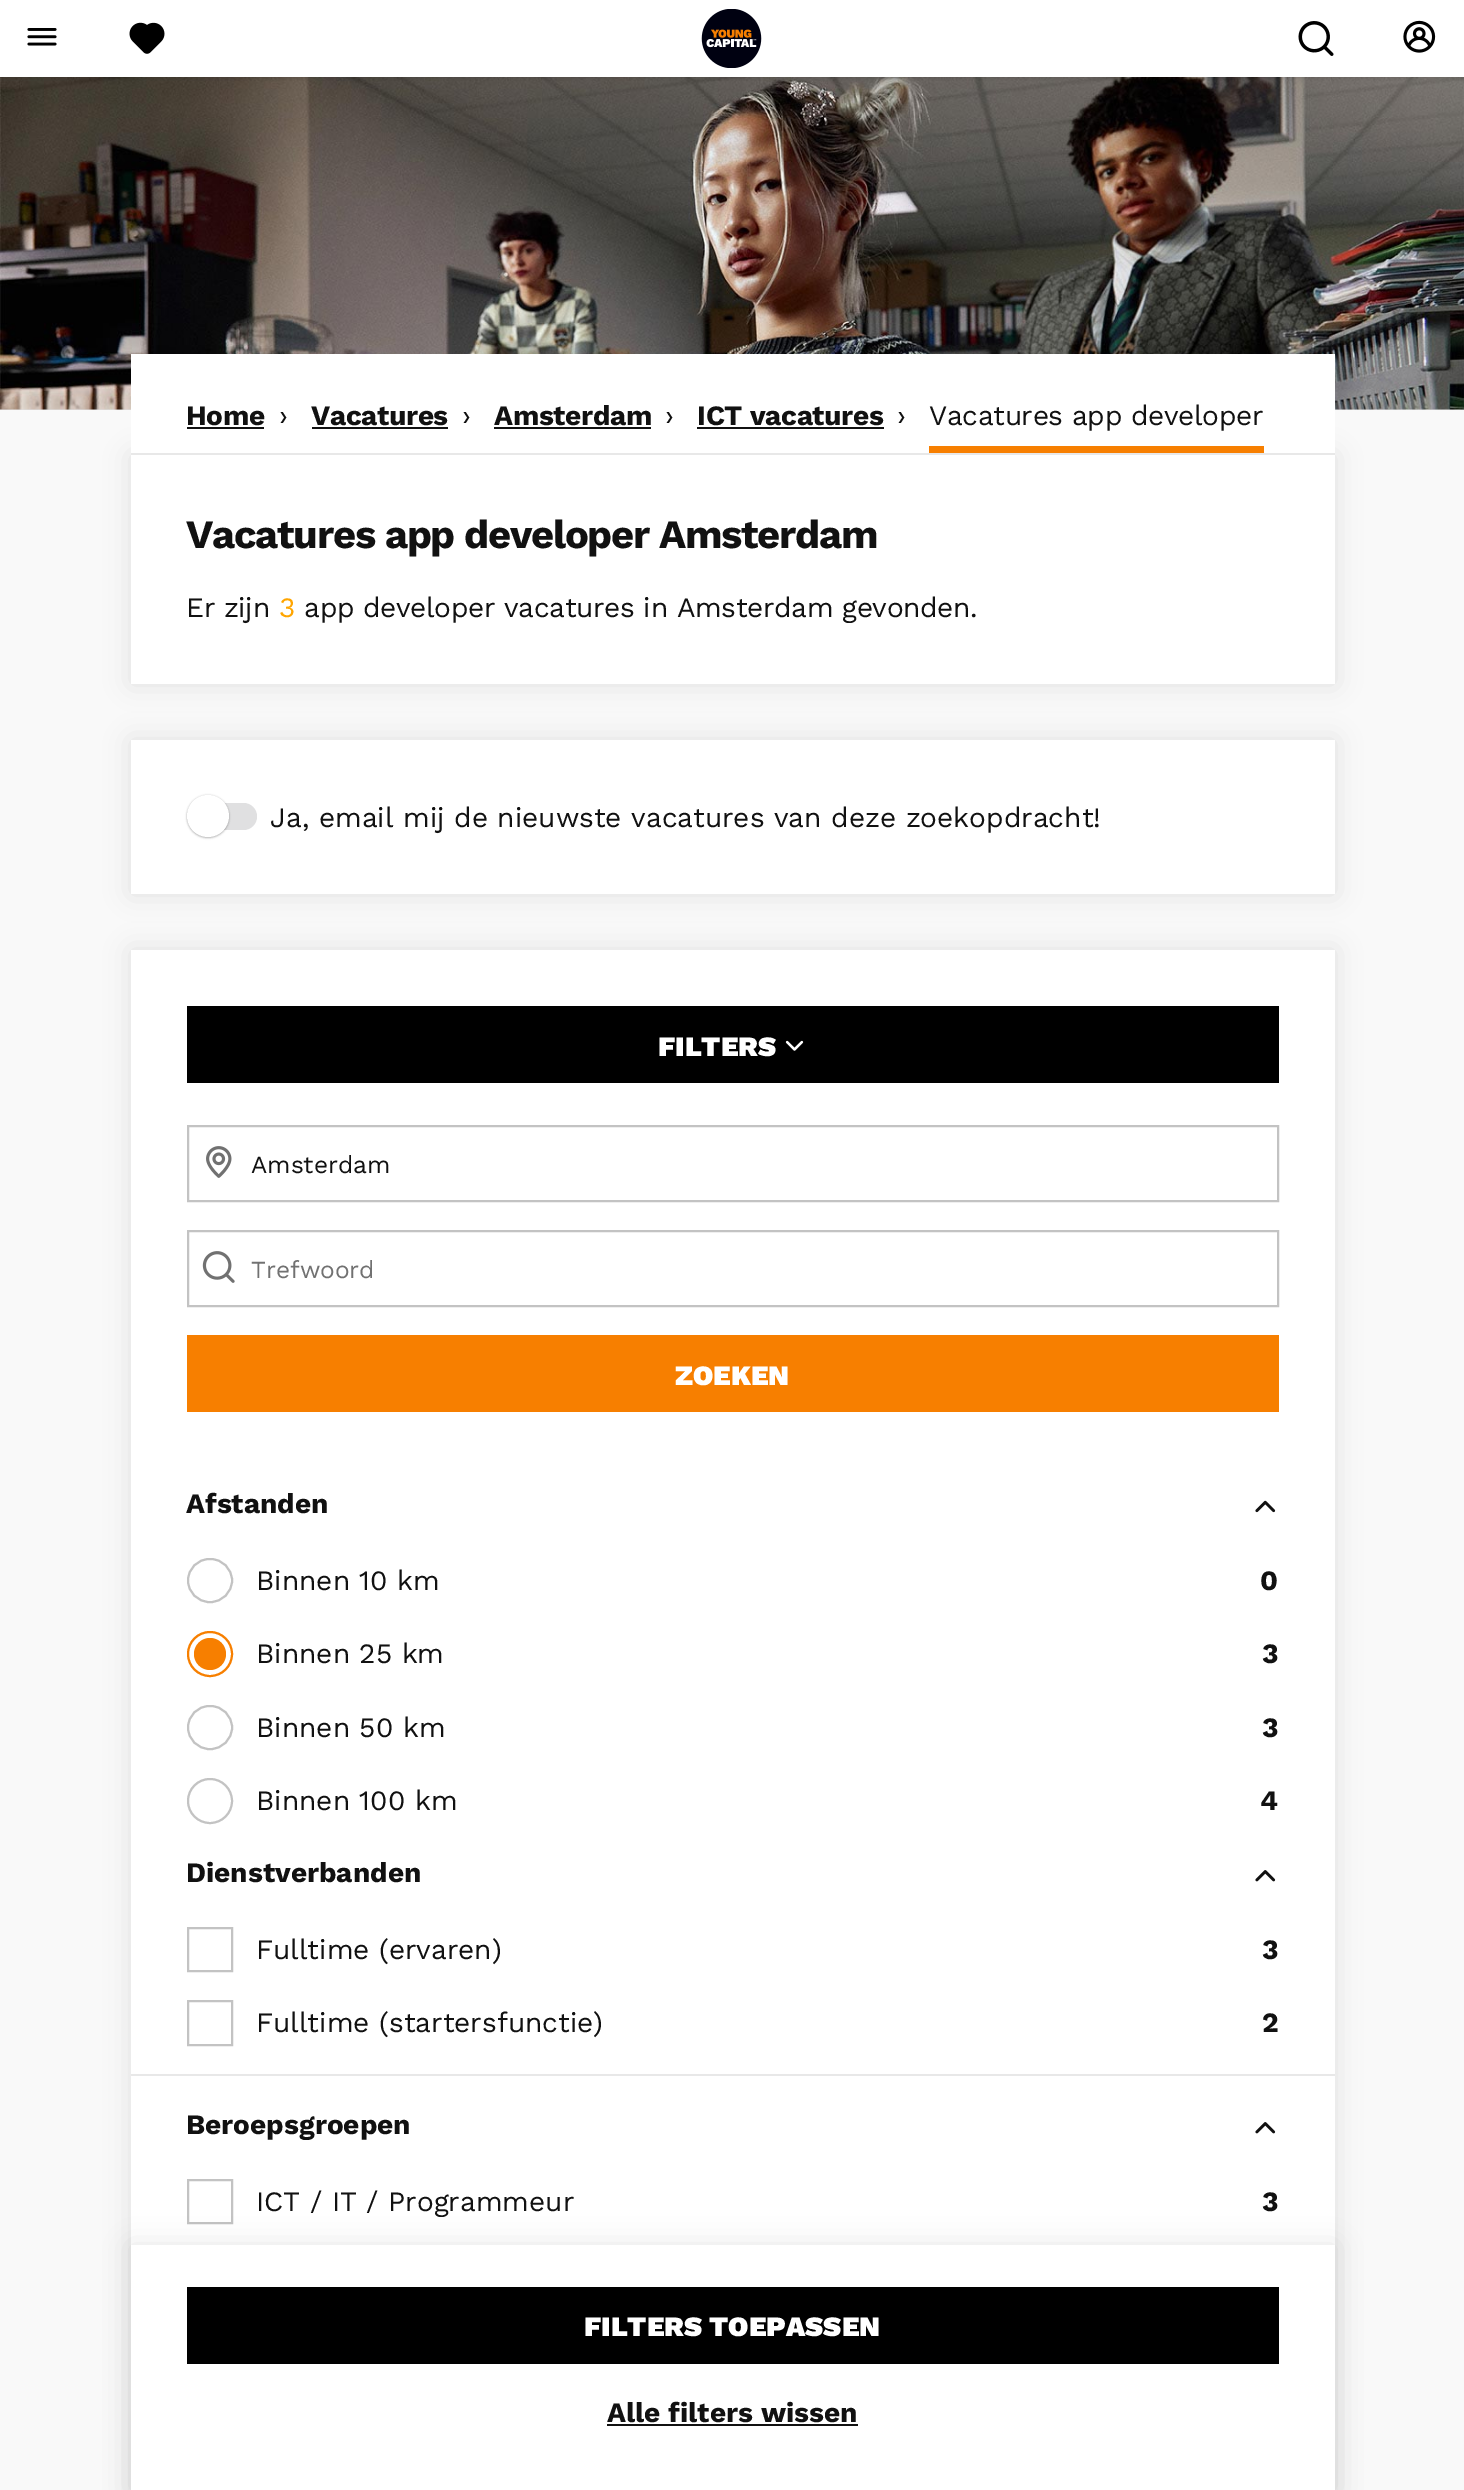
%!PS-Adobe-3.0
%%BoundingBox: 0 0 1464 2490
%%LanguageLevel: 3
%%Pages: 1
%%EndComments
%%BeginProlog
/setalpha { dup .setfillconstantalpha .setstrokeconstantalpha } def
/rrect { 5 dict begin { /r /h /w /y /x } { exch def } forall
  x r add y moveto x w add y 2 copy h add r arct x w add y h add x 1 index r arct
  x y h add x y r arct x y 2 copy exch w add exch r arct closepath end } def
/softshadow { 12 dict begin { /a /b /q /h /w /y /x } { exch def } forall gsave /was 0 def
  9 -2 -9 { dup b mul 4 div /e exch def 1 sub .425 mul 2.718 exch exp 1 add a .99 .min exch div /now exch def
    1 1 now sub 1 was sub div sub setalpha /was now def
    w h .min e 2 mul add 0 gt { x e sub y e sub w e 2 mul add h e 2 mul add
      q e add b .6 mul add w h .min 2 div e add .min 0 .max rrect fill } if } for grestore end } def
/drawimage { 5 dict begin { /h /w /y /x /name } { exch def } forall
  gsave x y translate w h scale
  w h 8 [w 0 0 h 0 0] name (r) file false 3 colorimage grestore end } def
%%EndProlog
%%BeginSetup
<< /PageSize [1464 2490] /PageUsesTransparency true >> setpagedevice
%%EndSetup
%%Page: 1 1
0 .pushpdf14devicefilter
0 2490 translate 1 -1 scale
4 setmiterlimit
0.976 setgray
0 0 1464 2490 rectfill
0.878 0.878 0.882 setrgbcolor
0 409 1464 1 rectfill
(images/6.raw) 0 77 1464 333 drawimage
0 setgray
0 2 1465 77 0 2 0.1 softshadow
1 setgray
0 0 1464 77 rectfill
(images/1.raw) 27 28 30 18 drawimage
(images/2.raw) 129 22 36 32 drawimage
(images/3.raw) 701 9 61 59 drawimage
(images/4.raw) 1298 21 36 35 drawimage
(images/5.raw) 1403 20 33 33 drawimage
0 setgray
131 455 1204 229 0 13 0.1 softshadow
1 setgray
131 354 1204 99 rectfill
0.91 setgray
131 453 1204 2 rectfill
0.067 setgray
187 427 77 2 rectfill
312 427 136 2 rectfill
494 427 157 2 rectfill
697 427 187 2 rectfill
0.969 0.498 0 setrgbcolor
929 446 335 7 rectfill
1 setgray
131 455 1204 229 rectfill
0 setgray
131 740 1204 154 0 13 0.1 softshadow
1 setgray
131 740 1204 154 rectfill
0.878 0.878 0.882 setrgbcolor
187 803 70 27 13.5 rrect fill
0 setgray
187 795 42 42 21 1 0.12 softshadow
187 796 42 42 21 1 0.24 softshadow
1 setgray
newpath 208 816 21 0 360 arc closepath fill
0 setgray
131 950 1204 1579 0 13 0.1 softshadow
1 setgray
131 950 1204 1295 rectfill
0 setgray
187 1006 1092 77 rectfill
(images/7.raw) 785 1040 19 11 drawimage
0.765 setgray
2 setlinewidth
188 1126 1090 75 rectstroke
(images/8.raw) 206 1146 26 32 drawimage
188 1231 1090 75 rectstroke
(images/9.raw) 202 1251 33 32 drawimage
0.969 0.498 0 setrgbcolor
187 1335 1092 77 rectfill
(images/10.raw) 1255 1500 21 13 drawimage
0.765 setgray
188 1559 44 43 21.5 rrect stroke
0.969 0.498 0 setrgbcolor
newpath 210 1654 22 0 360 arc closepath stroke
newpath 210 1654 16 0 360 arc closepath fill
0.765 setgray
188 1706 44 43 21.5 rrect stroke
newpath 210 1801 22 0 360 arc closepath stroke
(images/11.raw) 1255 1870 21 12 drawimage
188 1928 44 43 rectstroke
188 2001 44 44 rectstroke
0.91 setgray
131 2074 1204 2 rectfill
(images/11.raw) 1255 2122 21 12 drawimage
0.765 setgray
188 2180 44 43 rectstroke
0 setgray
131 2245 1204 245 0 13 0.1 softshadow
1 setgray
131 2245 1204 245 rectfill
0 setgray
187 2287 1092 77 rectfill
0.067 setgray
607 2424 251 2 rectfill
/WorkSans-Bold [28 0 0 -28 0 0] selectfont
186 425 moveto -0.35 0 (Home) ashow
/WorkSans-Regular [28 0 0 -28 0 0] selectfont
279 425 moveto -0.35 0 (›) ashow
/WorkSans-Bold [28 0 0 -28 0 0] selectfont
311 425 moveto -0.35 0 (Vacatures) ashow
/WorkSans-Regular [28 0 0 -28 0 0] selectfont
462 425 moveto -0.35 0 (›) ashow
/WorkSans-Bold [28 0 0 -28 0 0] selectfont
494 425 moveto -0.35 0 (Amsterdam) ashow
/WorkSans-Regular [28 0 0 -28 0 0] selectfont
665 425 moveto -0.35 0 (›) ashow
/WorkSans-Bold [28 0 0 -28 0 0] selectfont
697 425 moveto -0.35 0 (ICT vacatures) ashow
/WorkSans-Regular [28 0 0 -28 0 0] selectfont
897 425 moveto -0.35 0 (›) ashow
929 425 moveto -0.35 0 (Vacatures app developer) ashow
/WorkSans-Bold [40 0 0 -40 0 0] selectfont
186 548 moveto -1.3 0 (Vacatures app developer Amsterdam) ashow
/WorkSans-Regular [28 0 0 -28 0 0] selectfont
186 617 moveto -0.35 0 (Er zijn) ashow
1 0.647 0 setrgbcolor
279 617 moveto -0.35 0 (3) ashow
0.067 setgray
304 617 moveto -0.35 0 (app developer vacatures in Amsterdam gevonden.) ashow
270 827 moveto (Ja, email mij de nieuwste vacatures van deze zoekopdracht!) show
/WorkSans-Black [28 0 0 -28 0 0] selectfont
1 setgray
658 1056 moveto (FILTERS) show
/WorkSans-Regular [24.5 0 0 -24.5 0 0] selectfont
0.067 setgray
251 1173 moveto (Amsterdam) show
0.443 setgray
251 1278 moveto (Trefwoord) show
/WorkSans-Black [28 0 0 -28 0 0] selectfont
1 setgray
675 1385 moveto (ZOEKEN) show
/WorkSans-Bold [28 0 0 -28 0 0] selectfont
0.067 setgray
186 1513 moveto (Afstanden) show
/WorkSans-Regular [28 0 0 -28 0 0] selectfont
256 1590 moveto (Binnen 10 km) show
/WorkSans-Bold [28 0 0 -28 0 0] selectfont
1260 1590 moveto (0) show
/WorkSans-Regular [28 0 0 -28 0 0] selectfont
256 1663 moveto (Binnen 25 km) show
/WorkSans-Bold [28 0 0 -28 0 0] selectfont
1262 1663 moveto (3) show
/WorkSans-Regular [28 0 0 -28 0 0] selectfont
256 1737 moveto (Binnen 50 km) show
/WorkSans-Bold [28 0 0 -28 0 0] selectfont
1262 1737 moveto (3) show
/WorkSans-Regular [28 0 0 -28 0 0] selectfont
256 1810 moveto (Binnen 100 km) show
/WorkSans-Bold [28 0 0 -28 0 0] selectfont
1260 1810 moveto (4) show
186 1882 moveto (Dienstverbanden) show
/WorkSans-Regular [28 0 0 -28 0 0] selectfont
256 1959 moveto (Fulltime \(ervaren\)) show
/WorkSans-Bold [28 0 0 -28 0 0] selectfont
1262 1959 moveto (3) show
/WorkSans-Regular [28 0 0 -28 0 0] selectfont
256 2032 moveto (Fulltime \(startersfunctie\)) show
/WorkSans-Bold [28 0 0 -28 0 0] selectfont
1262 2032 moveto (2) show
186 2134 moveto (Beroepsgroepen) show
/WorkSans-Regular [28 0 0 -28 0 0] selectfont
256 2211 moveto (ICT / IT / Programmeur) show
/WorkSans-Bold [28 0 0 -28 0 0] selectfont
1262 2211 moveto (3) show
/WorkSans-Black [28 0 0 -28 0 0] selectfont
1 setgray
584 2336 moveto (FILTERS TOEPASSEN) show
/WorkSans-Bold [28 0 0 -28 0 0] selectfont
0.067 setgray
607 2422 moveto (Alle filters wissen) show
.poppdf14devicefilter showpage
%%EOF
